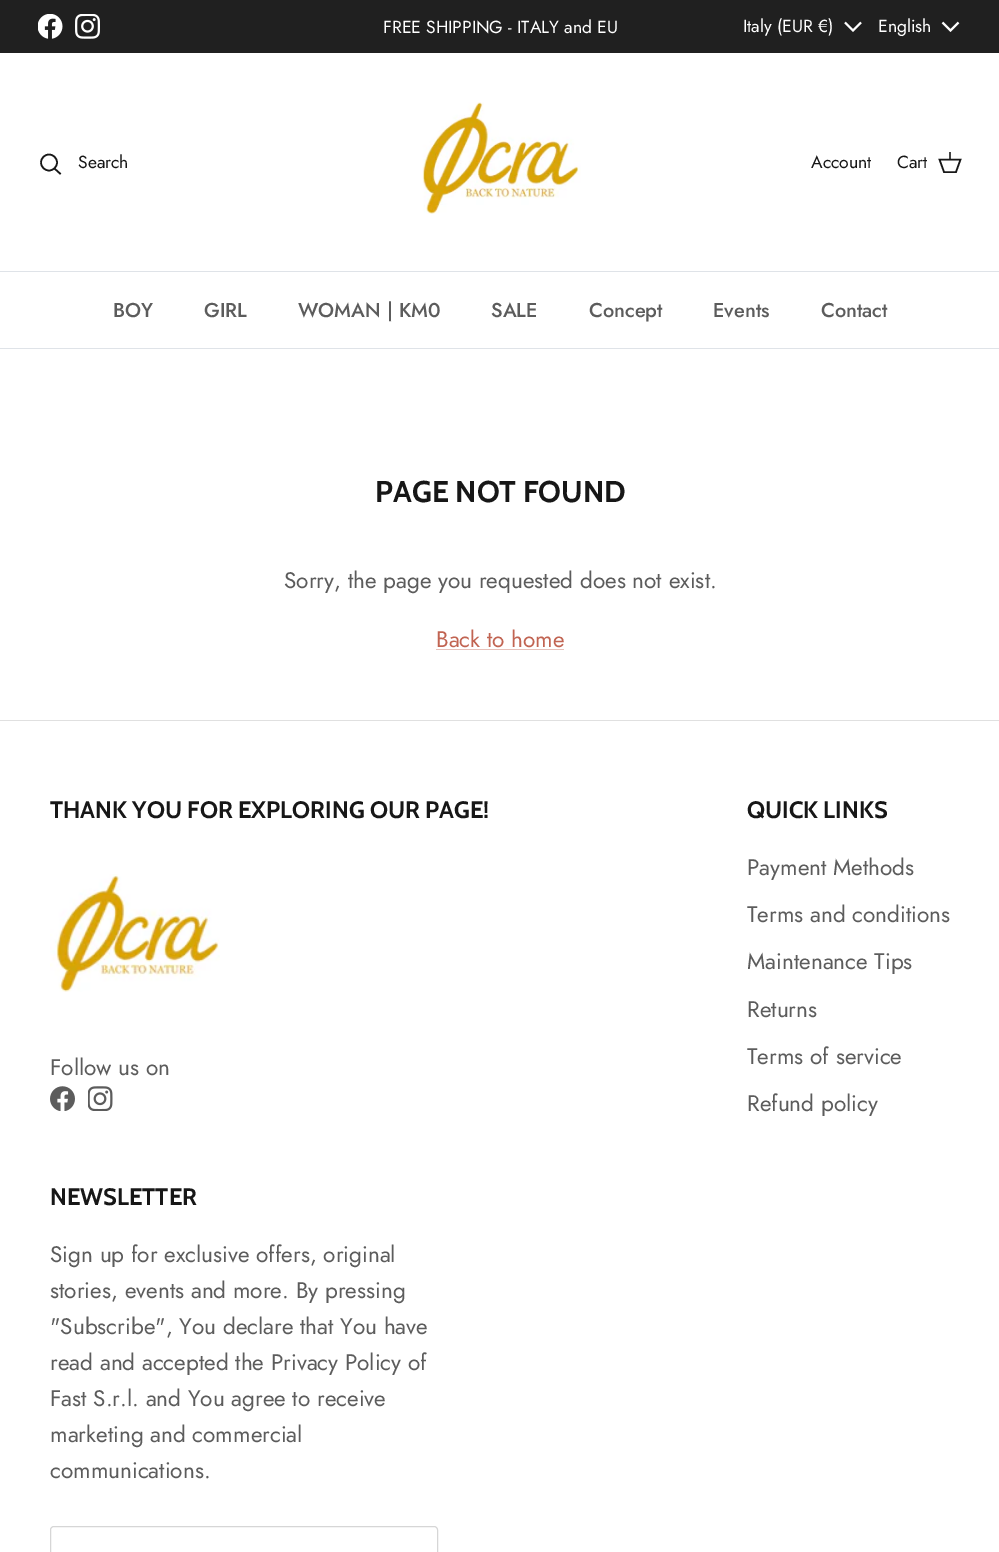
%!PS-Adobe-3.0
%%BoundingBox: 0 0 999 1552
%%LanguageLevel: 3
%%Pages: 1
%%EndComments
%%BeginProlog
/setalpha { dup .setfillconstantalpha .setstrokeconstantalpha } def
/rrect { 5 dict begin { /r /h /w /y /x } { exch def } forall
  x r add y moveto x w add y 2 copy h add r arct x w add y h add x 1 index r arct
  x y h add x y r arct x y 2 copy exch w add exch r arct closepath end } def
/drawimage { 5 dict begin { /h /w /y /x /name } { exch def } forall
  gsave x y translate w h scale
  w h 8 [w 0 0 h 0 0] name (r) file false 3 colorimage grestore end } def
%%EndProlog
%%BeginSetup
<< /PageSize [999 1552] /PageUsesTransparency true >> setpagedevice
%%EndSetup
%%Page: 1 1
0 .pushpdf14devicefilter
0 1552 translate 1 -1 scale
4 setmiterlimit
1 setgray
0 0 999 1552 rectfill
0.125 setgray
0 0 999 53 rectfill
(images/1.raw) 38 14 25 25 drawimage
(images/2.raw) 75 14 25 25 drawimage
1 setgray
2.1 setlinewidth
newpath 861 22.5 moveto 853 30.5 lineto 845 22.5 lineto stroke
newpath 958.5 22.5 moveto 950.5 30.5 lineto 942.5 22.5 lineto stroke
0.875 0.89 0.91 setrgbcolor
0 271 999 1 rectfill
0.09 setgray
1.6 setlinewidth
newpath 49 162.5 8 0 360 arc closepath stroke
2 setlinecap
newpath 55 169 moveto 60 173.5 lineto stroke
(images/3.raw) 422 102 159 112 drawimage
0 setlinecap
newpath 939.5 159.5 moveto 960.5 159.5 lineto 956 172 lineto 944 172 lineto closepath stroke
0.8 setalpha
949 152 2 8 rectfill
1 setalpha
0.875 0.89 0.91 setrgbcolor
0 348 999 1 rectfill
0.902 0.757 0.729 setrgbcolor
436 649 128 1 rectfill
0.878 setgray
0 720 999 1 rectfill
(images/4.raw) 50 874 170 118 drawimage
(images/5.raw) 50 1086 25 25 drawimage
(images/6.raw) 88 1086 25 25 drawimage
0.839 setgray
1 setlinewidth
50.5 1526.5 387 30 3.5 rrect stroke
/Jost-Regular [17.5 0 0 -17.5 0 0] selectfont
1 setgray
383 33 moveto (FREE SHIPPING - ITALY and EU) show
743 32 moveto (Italy \(EUR €\)) show
878 32 moveto (English) show
0.09 setgray
78 168 moveto (Search) show
811 168 moveto (Account) show
897 168 moveto (Cart) show
/Jost-Medium [20 0 0 -20 0 0] selectfont
0.361 setgray
113 317 moveto (BOY) show
204 317 moveto (GIRL) show
298 317 moveto (WOMAN | KM0) show
491 317 moveto (SALE) show
589 317 moveto (Concept) show
713 317 moveto (Events) show
821 317 moveto (Contact) show
/Cabin-Bold [30 0 0 -30 0 0] selectfont
0.09 setgray
375 502 moveto (PAGE NOT FOUND) show
/Jost-Regular [22.5 0 0 -22.5 0 0] selectfont
0.361 setgray
284 588 moveto (Sorry, the page you requested does not exist.) show
0.757 0.392 0.322 setrgbcolor
436 647 moveto (Back to home) show
/Cabin-Bold [23.75 0 0 -23.75 0 0] selectfont
0.09 setgray
50 818 moveto (THANK YOU FOR EXPLORING OUR PAGE!) show
/Jost-Regular [22.5 0 0 -22.5 0 0] selectfont
0.361 setgray
50 1075 moveto (Follow us on) show
/Cabin-Bold [23.75 0 0 -23.75 0 0] selectfont
0.09 setgray
747 818 moveto (QUICK LINKS) show
/Jost-Regular [22.5 0 0 -22.5 0 0] selectfont
0.361 setgray
747 875 moveto (Payment Methods) show
747 922 moveto (Terms and conditions) show
747 969 moveto (Maintenance Tips) show
747 1017 moveto (Returns) show
747 1064 moveto (Terms of service) show
747 1111 moveto (Refund policy) show
/Cabin-Bold [23.75 0 0 -23.75 0 0] selectfont
0.09 setgray
50 1205 moveto (NEWSLETTER) show
/Jost-Regular [22.5 0 0 -22.5 0 0] selectfont
0.361 setgray
50 1262 moveto (Sign up for exclusive offers, original) show
50 1298 moveto (stories, events and more. By pressing) show
50 1334 moveto ("Subscribe", You declare that You have) show
50 1370 moveto (read and accepted the Privacy Policy of) show
50 1406 moveto (Fast S.r.l. and You agree to receive) show
50 1442 moveto (marketing and commercial) show
50 1478 moveto (communications.) show
.poppdf14devicefilter showpage
%%EOF
